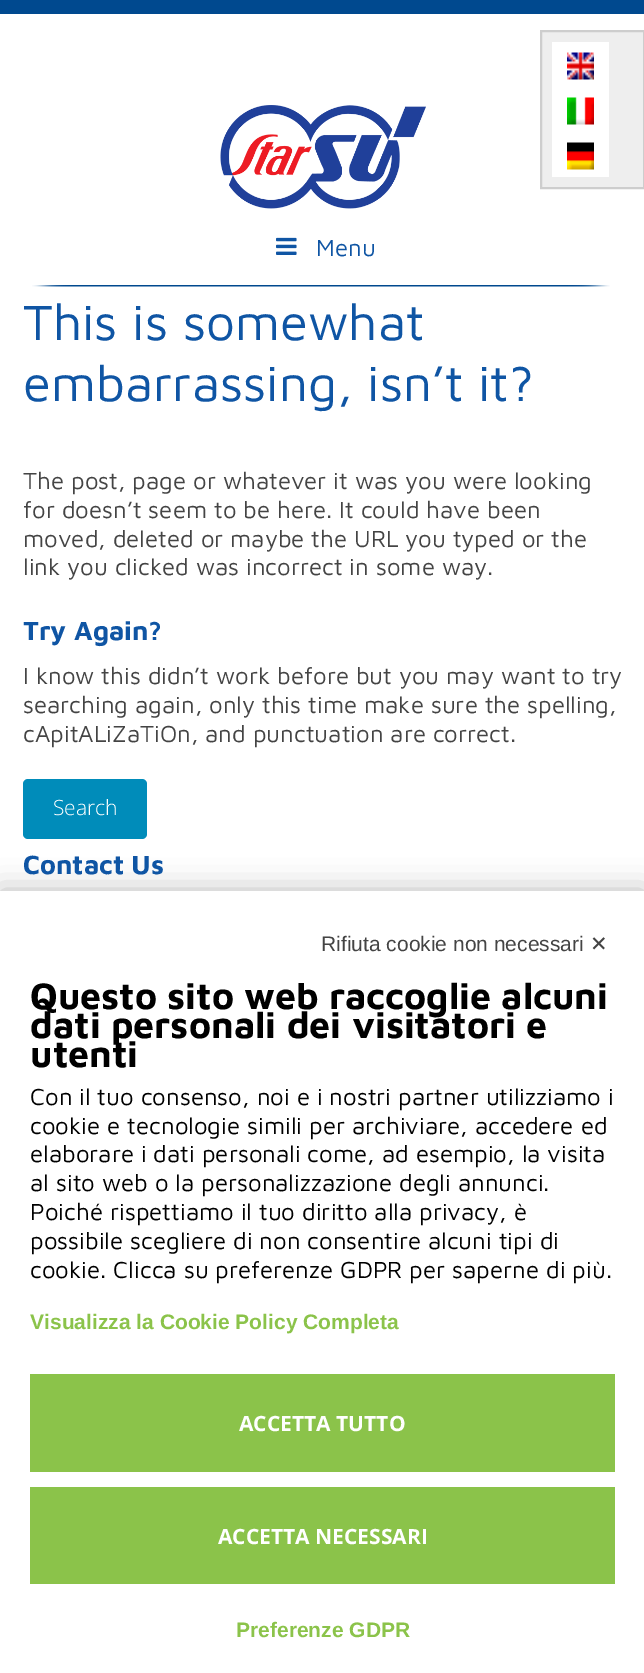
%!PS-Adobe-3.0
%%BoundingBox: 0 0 644 1673
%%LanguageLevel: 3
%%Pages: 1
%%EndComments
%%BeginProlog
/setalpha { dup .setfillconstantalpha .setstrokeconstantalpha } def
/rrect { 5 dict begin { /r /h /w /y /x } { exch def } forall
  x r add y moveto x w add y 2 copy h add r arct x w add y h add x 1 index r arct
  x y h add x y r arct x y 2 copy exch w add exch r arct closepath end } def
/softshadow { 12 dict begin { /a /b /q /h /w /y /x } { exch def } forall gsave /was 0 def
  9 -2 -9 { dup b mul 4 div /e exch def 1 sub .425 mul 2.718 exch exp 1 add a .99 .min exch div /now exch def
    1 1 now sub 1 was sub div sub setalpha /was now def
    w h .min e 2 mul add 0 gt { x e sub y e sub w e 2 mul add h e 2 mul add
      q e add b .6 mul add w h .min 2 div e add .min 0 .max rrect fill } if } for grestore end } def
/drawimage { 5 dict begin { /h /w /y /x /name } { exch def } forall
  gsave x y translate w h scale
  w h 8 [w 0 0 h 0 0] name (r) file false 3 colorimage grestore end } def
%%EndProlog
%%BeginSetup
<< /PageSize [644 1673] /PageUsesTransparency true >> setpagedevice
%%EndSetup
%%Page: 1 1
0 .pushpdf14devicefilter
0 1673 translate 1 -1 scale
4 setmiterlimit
1 setgray
0 0 644 1673 rectfill
0 0.286 0.561 setrgbcolor
0 0 644 14 rectfill
(images/1.raw) 220 105 206 104 drawimage
0.933 setgray
newpath 541 31 moveto 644 31 lineto 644 188 lineto 541 188 lineto closepath gsave fill grestore
0.804 setgray
2 setlinewidth
stroke
1 setgray
552 42 57 135 rectfill
(images/2.raw) 567 52 27 28 drawimage
(images/3.raw) 567 97 27 28 drawimage
(images/4.raw) 567 142 27 28 drawimage
(images/5.raw) 276 237 21 18 drawimage
(images/6.raw) 32 285 578 2 drawimage
0 0.549 0.729 setrgbcolor
23 779 124 60 5 rrect fill
0 setgray
0 891 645 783 0 15 0.27 softshadow
1 setgray
0 891 644 782 rectfill
0.545 0.765 0.29 setrgbcolor
30 1374 585 98 rectfill
30 1487 585 97 rectfill
/MavenPro-Regular [24 0 0 -24 0 0] selectfont
0.059 0.333 0.643 setrgbcolor
316 256 moveto (Menu) show
/MavenPro-Regular [51 0 0 -51 0 0] selectfont
23 340 moveto (This is somewhat) show
23 401 moveto (embarrassing, isn’t it?) show
/MavenPro-Regular [24 0 0 -24 0 0] selectfont
0.267 setgray
23 489 moveto (The post, page or whatever it was you were looking) show
23 518 moveto (for doesn’t seem to be here. It could have been) show
23 547 moveto (moved, deleted or maybe the URL you typed or the) show
23 575 moveto (link you clicked was incorrect in some way.) show
/MavenPro-Bold [27 0 0 -27 0 0] selectfont
0.059 0.333 0.643 setrgbcolor
23 640 moveto (Try Again?) show
/MavenPro-Regular [24 0 0 -24 0 0] selectfont
0.267 setgray
23 684 moveto (I know this didn’t work before but you may want to try) show
23 713 moveto (searching again, only this time make sure the spelling,) show
23 742 moveto (cApitALiZaTiOn, and punctuation are correct.) show
/OpenSans-Light [21 0 0 -21 0 0] selectfont
1 setgray
53 815 moveto (Search) show
/MavenPro-Bold [27 0 0 -27 0 0] selectfont
0.059 0.333 0.643 setrgbcolor
23 874 moveto (Contact Us) show
/LiberationSans-Regular [21 0 0 -21 0 0] selectfont
0.267 setgray
321 951 moveto (Rifiuta cookie non necessari) show
/DejaVuSans-Regular [21 0 0 -21 0 0] selectfont
590 951 moveto (✕) show
/MavenPro-Bold [37.5 0 0 -37.5 0 0] selectfont
0 setgray
30 1009 moveto (Questo sito web raccoglie alcuni) show
30 1038 moveto (dati personali dei visitatori e) show
30 1067 moveto (utenti) show
/MavenPro-Regular [24 0 0 -24 0 0] selectfont
30 1105 moveto (Con il tuo consenso, noi e i nostri partner utilizziamo i) show
30 1134 moveto (cookie e tecnologie simili per archiviare, accedere ed) show
30 1162 moveto (elaborare i dati personali come, ad esempio, la visita) show
30 1191 moveto (al sito web o la personalizzazione degli annunci.) show
30 1220 moveto (Poiché rispettiamo il tuo diritto alla privacy, è) show
30 1249 moveto (possibile scegliere di non consentire alcuni tipi di) show
30 1278 moveto (cookie. Clicca su preferenze GDPR per saperne di più.) show
/LiberationSans-Bold [21 0 0 -21 0 0] selectfont
0.545 0.765 0.29 setrgbcolor
30 1329 moveto (Visualizza la Cookie Policy Completa) show
/OpenSans-Bold [21 0 0 -21 0 0] selectfont
1 setgray
239 1431 moveto (ACCETTA TUTTO) show
218 1544 moveto (ACCETTA NECESSARI) show
/LiberationSans-Bold [21 0 0 -21 0 0] selectfont
0.545 0.765 0.29 setrgbcolor
236 1637 moveto (Preferenze GDPR) show
.poppdf14devicefilter showpage
%%EOF
